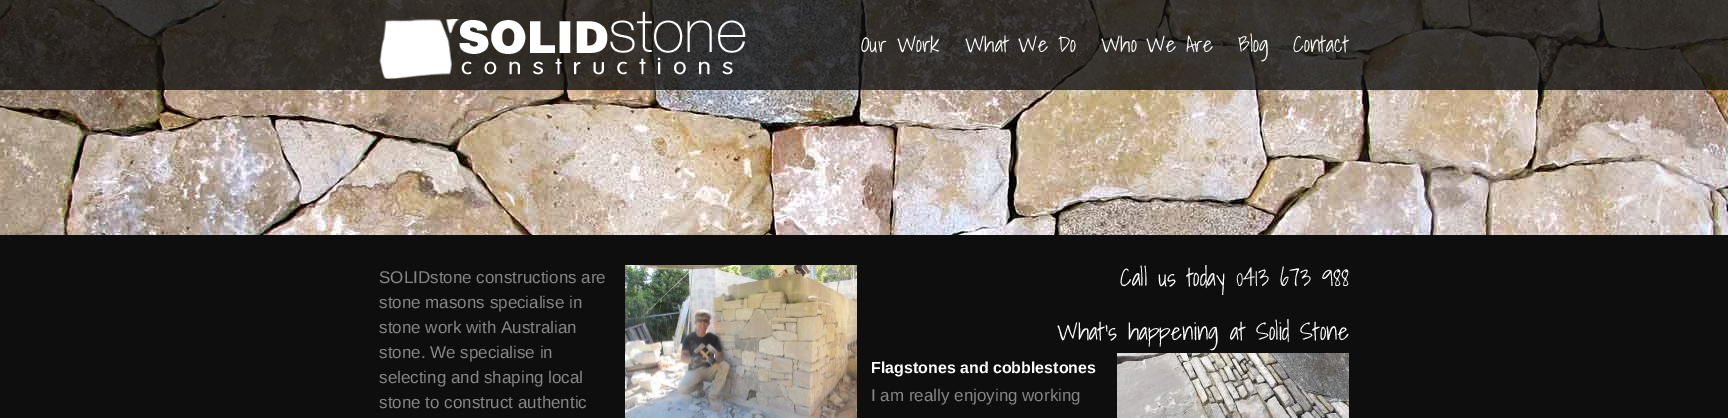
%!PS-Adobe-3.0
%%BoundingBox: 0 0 1728 418
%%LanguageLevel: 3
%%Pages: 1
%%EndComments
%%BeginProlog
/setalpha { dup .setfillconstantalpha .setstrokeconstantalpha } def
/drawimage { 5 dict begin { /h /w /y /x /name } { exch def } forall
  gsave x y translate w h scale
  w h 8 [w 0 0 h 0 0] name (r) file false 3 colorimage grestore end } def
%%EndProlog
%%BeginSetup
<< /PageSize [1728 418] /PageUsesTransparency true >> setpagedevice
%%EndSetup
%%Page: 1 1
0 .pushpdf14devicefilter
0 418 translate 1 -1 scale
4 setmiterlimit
0.055 setgray
0 0 1728 418 rectfill
(images/1.raw) 0 0 1728 235 drawimage
0.79 setalpha
0 0 1728 90 rectfill
1 setalpha
(images/2.raw) 379 11 367 68 drawimage
(images/3.raw) 625 265 232 153 drawimage
(images/4.raw) 1117 353 232 65 drawimage
/ShadowsIntoLight-Light [22 0 0 -22 0 0] selectfont
1 setgray
861 52 moveto (Our Work) show
965 52 moveto (What We Do) show
1101 52 moveto (Who We Are) show
1238 52 moveto (Blog) show
1293 52 moveto (Contact) show
/LiberationSans-Regular [17 0 0 -17 0 0] selectfont
0.525 setgray
379 283 moveto (SOLIDstone constructions are) show
379 308 moveto (stone masons specialise in) show
379 333 moveto (stone work with Australian) show
379 358 moveto (stone. We specialise in) show
379 383 moveto (selecting and shaping local) show
379 408 moveto (stone to construct authentic) show
/ShadowsIntoLight-Light [24 0 0 -24 0 0] selectfont
1 setgray
1120 286 moveto (Call us today 0413 673 988) show
1057 340 moveto (What's happening at Solid Stone) show
/LiberationSans-Bold [16 0 0 -16 0 0] selectfont
871 373 moveto (Flagstones and cobblestones) show
/LiberationSans-Regular [17 0 0 -17 0 0] selectfont
0.525 setgray
871 401 moveto (I am really enjoying working) show
.poppdf14devicefilter showpage
%%EOF
